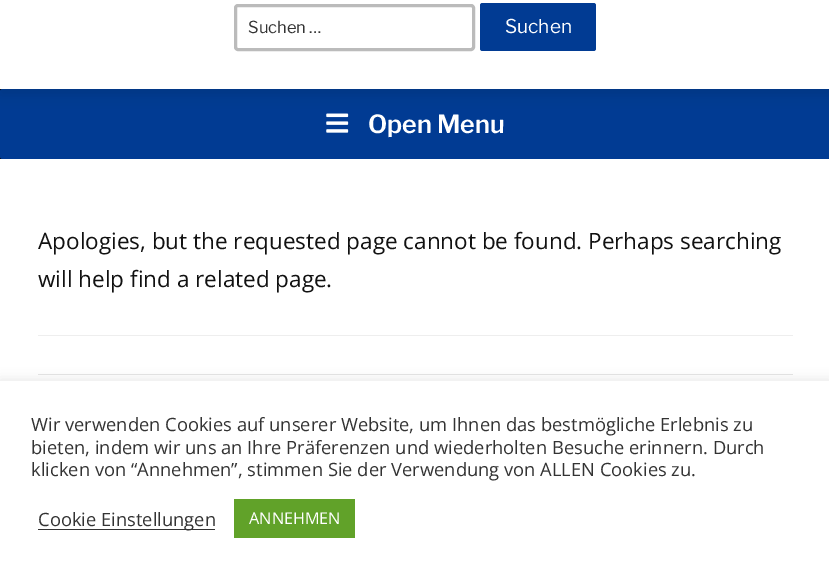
%!PS-Adobe-3.0
%%BoundingBox: 0 0 829 575
%%LanguageLevel: 3
%%Pages: 1
%%EndComments
%%BeginProlog
/setalpha { dup .setfillconstantalpha .setstrokeconstantalpha } def
/rrect { 5 dict begin { /r /h /w /y /x } { exch def } forall
  x r add y moveto x w add y 2 copy h add r arct x w add y h add x 1 index r arct
  x y h add x y r arct x y 2 copy exch w add exch r arct closepath end } def
/softshadow { 12 dict begin { /a /b /q /h /w /y /x } { exch def } forall gsave /was 0 def
  9 -2 -9 { dup b mul 4 div /e exch def 1 sub .425 mul 2.718 exch exp 1 add a .99 .min exch div /now exch def
    1 1 now sub 1 was sub div sub setalpha /was now def
    w h .min e 2 mul add 0 gt { x e sub y e sub w e 2 mul add h e 2 mul add
      q e add b .6 mul add w h .min 2 div e add .min 0 .max rrect fill } if } for grestore end } def
/drawimage { 5 dict begin { /h /w /y /x /name } { exch def } forall
  gsave x y translate w h scale
  w h 8 [w 0 0 h 0 0] name (r) file false 3 colorimage grestore end } def
%%EndProlog
%%BeginSetup
<< /PageSize [829 575] /PageUsesTransparency true >> setpagedevice
%%EndSetup
%%Page: 1 1
0 .pushpdf14devicefilter
0 575 translate 1 -1 scale
4 setmiterlimit
1 setgray
0 0 829 575 rectfill
0.008 setgray
0 89 829 70 rectfill
0.004 0.231 0.576 setrgbcolor
0 89 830 70 2.5 rrect fill
(images/1.raw) 326 113 23 20 drawimage
gsave
newpath 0 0 moveto 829 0 lineto 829 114 lineto 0 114 lineto closepath 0 -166 moveto 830 -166 lineto 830 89 lineto 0 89 lineto closepath eoclip newpath
0 setgray
0 -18 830 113 0 6 0.1 softshadow
grestore
0.733 setgray
3 setlinewidth
235.5 5.5 238 44 2.5 rrect stroke
0.004 0.231 0.576 setrgbcolor
480 3 116 48 2.5 rrect fill
0.933 setgray
38 335 755 1 rectfill
0.89 setgray
38 374 755 1 rectfill
0.675 0.671 0.671 setrgbcolor
0 380 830 194 0 6 0.3 softshadow
1 setgray
0 381 829 194 rectfill
0.2 setgray
38 529 177 1 rectfill
0.38 0.635 0.161 setrgbcolor
234 499 121 39 rectfill
/LibreFranklin-Regular [16.5 0 0 -16.5 0 0] selectfont
0.2 setgray
248 33 moveto (Suchen …) show
/LibreFranklin-Regular [19 0 0 -19 0 0] selectfont
1 setgray
505 33 moveto (Suchen) show
/LibreFranklin-SemiBold [25 0 0 -25 0 0] selectfont
368 133 moveto (Open Menu) show
/OpenSans-Regular [22.5 0 0 -22.5 0 0] selectfont
0.067 setgray
38 249 moveto (Apologies, but the requested page cannot be found. Perhaps searching) show
38 287 moveto (will help find a related page.) show
/OpenSans-Regular [18.35 0 0 -18.35 0 0] selectfont
0.2 setgray
31 431 moveto (Wir verwenden Cookies auf unserer Website, um Ihnen das bestmögliche Erlebnis zu) show
31 454 moveto (bieten, indem wir uns an Ihre Präferenzen und wiederholten Besuche erinnern. Durch) show
31 476 moveto (klicken von “Annehmen”, stimmen Sie der Verwendung von ALLEN Cookies zu.) show
38 526 moveto (Cookie Einstellungen) show
/OpenSans-Regular [16.25 0 0 -16.25 0 0] selectfont
1 setgray
249 524 moveto (ANNEHMEN) show
.poppdf14devicefilter showpage
%%EOF
